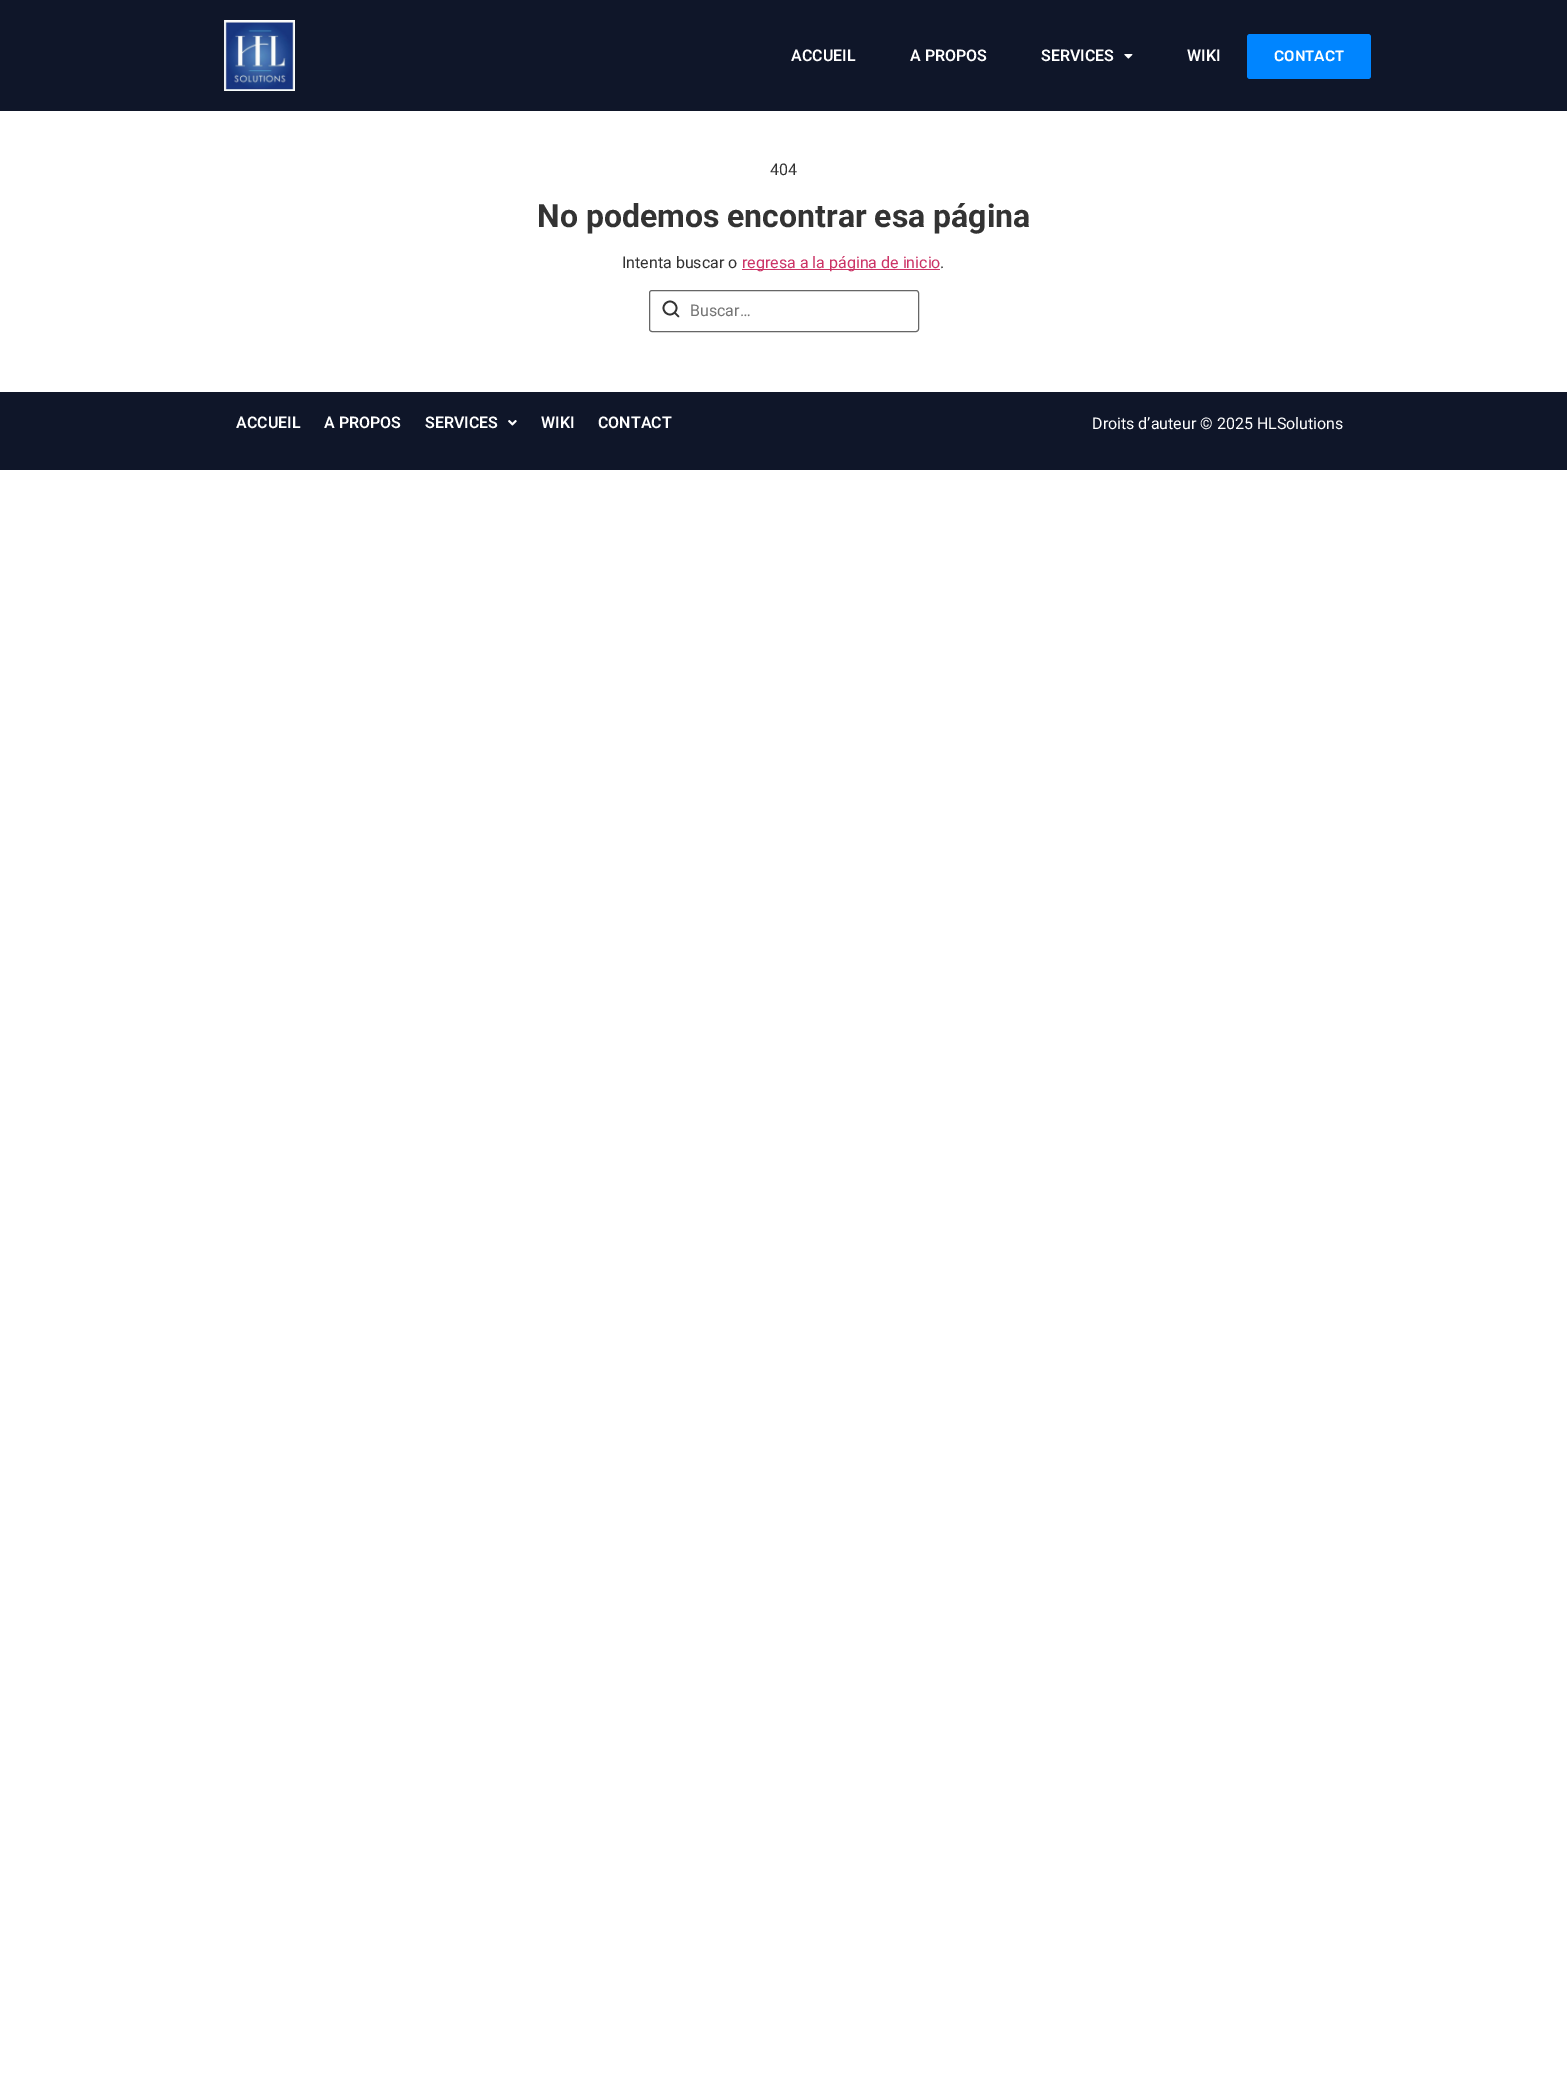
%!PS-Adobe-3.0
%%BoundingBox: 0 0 1567 2090
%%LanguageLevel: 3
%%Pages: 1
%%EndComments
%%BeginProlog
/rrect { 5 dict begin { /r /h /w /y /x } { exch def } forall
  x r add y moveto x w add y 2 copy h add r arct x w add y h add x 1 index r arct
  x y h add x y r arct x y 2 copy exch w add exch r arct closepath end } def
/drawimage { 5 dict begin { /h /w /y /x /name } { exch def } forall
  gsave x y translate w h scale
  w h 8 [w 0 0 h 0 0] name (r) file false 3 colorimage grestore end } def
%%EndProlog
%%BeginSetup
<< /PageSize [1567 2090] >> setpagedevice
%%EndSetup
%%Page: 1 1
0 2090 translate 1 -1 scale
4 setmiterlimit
1 setgray
0 0 1567 2090 rectfill
0.059 0.086 0.161 setrgbcolor
0 0 1567 111 rectfill
(images/1.raw) 224 20 71 71 drawimage
(images/2.raw) 1124 54 9 5 drawimage
0 0.522 1 setrgbcolor
1247 34 124 45 3 rrect fill
0.8 0.2 0.4 setrgbcolor
742 269 198 1 rectfill
0.4 setgray
649.5 290.5 269 41 2.5 rrect stroke
0.2 setgray
1.7 setlinewidth
newpath 670 308 6.5 0 360 arc closepath stroke
1 setlinecap
1 setlinejoin
newpath 678.5 316.5 moveto 675 313 lineto stroke
0.059 0.086 0.161 setrgbcolor
0 392 1567 78 rectfill
(images/3.raw) 508 420 9 6 drawimage
/Roboto-SemiBold [16 0 0 -16 0 0] selectfont
1 setgray
791 61 moveto (ACCUEIL) show
910 61 moveto (A PROPOS) show
1041 61 moveto (SERVICES) show
1187 61 moveto (WIKI) show
/Rubik-Medium [15 0 0 -15 0 0] selectfont
1274 61 moveto (CONTACT) show
/Roboto-Regular [16 0 0 -16 0 0] selectfont
0.2 setgray
770 175 moveto (404) show
/Roboto-Bold [32 0 0 -32 0 0] selectfont
537 227 moveto (No podemos encontrar esa página) show
/Roboto-Regular [16 0 0 -16 0 0] selectfont
622 268 moveto (Intenta buscar o) show
0.8 0.2 0.4 setrgbcolor
742 268 moveto (regresa a la página de inicio) show
0.2 setgray
940 268 moveto (.) show
0.459 setgray
690 316 moveto (Buscar…) show
/Roboto-SemiBold [16 0 0 -16 0 0] selectfont
1 setgray
236 428 moveto (ACCUEIL) show
324 428 moveto (A PROPOS) show
425 428 moveto (SERVICES) show
541 428 moveto (WIKI) show
598 428 moveto (CONTACT) show
/Roboto-Regular [16 0 0 -16 0 0] selectfont
1092 429 moveto (Droits d’auteur © 2025 HLSolutions) show
showpage
%%EOF
